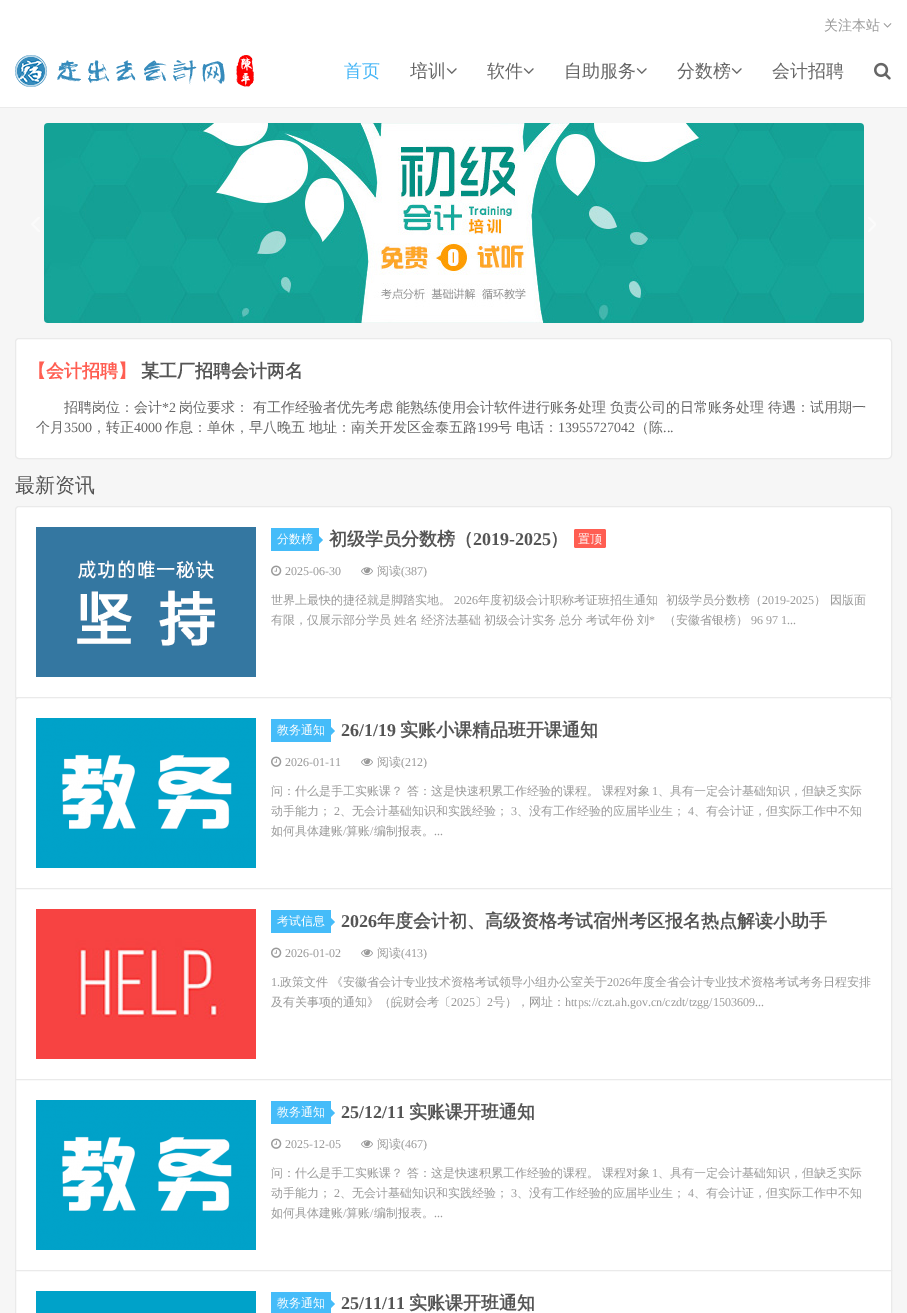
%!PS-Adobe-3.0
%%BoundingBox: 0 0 907 1313
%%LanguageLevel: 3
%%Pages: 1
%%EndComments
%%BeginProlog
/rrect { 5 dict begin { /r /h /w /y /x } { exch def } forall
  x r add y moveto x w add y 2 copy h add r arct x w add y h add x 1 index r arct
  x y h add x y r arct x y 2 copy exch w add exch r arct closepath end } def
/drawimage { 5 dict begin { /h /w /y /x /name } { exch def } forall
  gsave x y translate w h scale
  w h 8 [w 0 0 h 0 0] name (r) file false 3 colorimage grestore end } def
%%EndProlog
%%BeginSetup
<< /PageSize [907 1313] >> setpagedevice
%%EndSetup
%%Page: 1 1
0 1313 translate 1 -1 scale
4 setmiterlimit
0.965 setgray
0 0 907 1313 rectfill
1 setgray
0 0 907 107 rectfill
0.922 setgray
0 107 907 1 rectfill
(images/1.raw) 883 23 9 5 drawimage
(images/2.raw) 15 55 239 32 drawimage
(images/3.raw) 446 68 11 6 drawimage
(images/3.raw) 523 68 11 6 drawimage
(images/3.raw) 636 68 11 6 drawimage
(images/3.raw) 731 68 11 6 drawimage
(images/4.raw) 874 62 17 18 drawimage
(images/5.raw) 31 217 9 15 drawimage
(images/6.raw) 44 123 820 200 drawimage
(images/7.raw) 868 217 8 15 drawimage
1 setgray
15.5 338.5 876 120 3.5 rrect gsave fill grestore
0.918 setgray
stroke
1 setgray
newpath 19 506.5 moveto 888 506.5 lineto 890 506.5 891.5 508 891.5 510 curveto 891.5 697.5 lineto 15.5 697.5 lineto 15.5 510 lineto 15.5 508 17 506.5 19 506.5 curveto closepath gsave fill grestore
0.918 setgray
stroke
(images/8.raw) 36 527 220 150 drawimage
0.271 0.737 0.976 setrgbcolor
271 528 48 23 rectfill
newpath 319 544 moveto 319 536 lineto 323 540 lineto closepath fill
1 0.369 0.322 setrgbcolor
574 529 32 19 2 rrect fill
(images/9.raw) 271 565 11 11 drawimage
(images/10.raw) 361 567 12 8 drawimage
1 setgray
newpath 19 697.5 moveto 888 697.5 lineto 890 697.5 891.5 699 891.5 701 curveto 891.5 888.5 lineto 15.5 888.5 lineto 15.5 701 lineto 15.5 699 17 697.5 19 697.5 curveto closepath gsave fill grestore
0.918 setgray
stroke
(images/11.raw) 36 718 220 150 drawimage
0.271 0.737 0.976 setrgbcolor
271 719 60 23 rectfill
newpath 331 735 moveto 331 727 lineto 335 731 lineto closepath fill
(images/9.raw) 271 756 11 11 drawimage
(images/10.raw) 361 758 12 8 drawimage
1 setgray
newpath 15.5 888.5 moveto 891.5 888.5 lineto 891.5 1079.5 lineto 15.5 1079.5 lineto closepath gsave fill grestore
0.918 setgray
stroke
(images/12.raw) 36 909 220 150 drawimage
0.271 0.737 0.976 setrgbcolor
271 910 60 23 rectfill
newpath 331 926 moveto 331 918 lineto 335 922 lineto closepath fill
(images/9.raw) 271 947 11 11 drawimage
(images/10.raw) 361 949 12 8 drawimage
1 setgray
newpath 15.5 1079.5 moveto 891.5 1079.5 lineto 891.5 1270.5 lineto 15.5 1270.5 lineto closepath gsave fill grestore
0.918 setgray
stroke
(images/11.raw) 36 1100 220 150 drawimage
0.271 0.737 0.976 setrgbcolor
271 1101 60 23 rectfill
newpath 331 1117 moveto 331 1109 lineto 335 1113 lineto closepath fill
(images/9.raw) 271 1138 11 11 drawimage
(images/10.raw) 361 1140 12 8 drawimage
1 setgray
newpath 15.5 1270.5 moveto 891.5 1270.5 lineto 891.5 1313.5 lineto 15.5 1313.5 lineto closepath gsave fill grestore
0.918 setgray
stroke
0 0.635 0.788 setrgbcolor
36 1291 220 22 rectfill
0.271 0.737 0.976 setrgbcolor
271 1292 60 21 rectfill
newpath 331 1308 moveto 331 1300 lineto 335 1304 lineto closepath fill
/WenQuanYiZenHei-Medium [14 0 0 -14 0 0] selectfont
0.6 setgray
824 30 moveto (关注本站) show
/WenQuanYiZenHei-Medium [18 0 0 -18 0 0] selectfont
0.271 0.714 0.969 setrgbcolor
344 77 moveto (首页) show
0.4 setgray
410 77 moveto (培训) show
487 77 moveto (软件) show
564 77 moveto (自助服务) show
677 77 moveto (分数榜) show
772 77 moveto (会计招聘) show
/WenQuanYiZenHei-Bold [18 0 0 -18 0 0] selectfont
1 0.369 0.322 setrgbcolor
28 377 moveto (【会计招聘】) show
0.333 setgray
141 377 moveto (某工厂招聘会计两名) show
/WenQuanYiZenHei-Medium [14 0 0 -14 0 0] selectfont
0.4 setgray
64 412 moveto (招聘岗位：会计) show
/LiberationSerif-Regular [14 0 0 -14 0 0] selectfont
162 412 moveto (*2) show
/WenQuanYiZenHei-Medium [14 0 0 -14 0 0] selectfont
179 412 moveto -0.5 0 32 (岗位要求： 有工作经验者优先考虑 能熟练使用会计软件进行账务处理 负责公司的日常账务处理 待遇：试用期一) widthshow
36 432 moveto (个月) show
/LiberationSerif-Regular [14 0 0 -14 0 0] selectfont
64 432 moveto (3500) show
/WenQuanYiZenHei-Medium [14 0 0 -14 0 0] selectfont
92 432 moveto (，转正) show
/LiberationSerif-Regular [14 0 0 -14 0 0] selectfont
134 432 moveto (4000) show
/WenQuanYiZenHei-Medium [14 0 0 -14 0 0] selectfont
165 432 moveto (作息：单休，早八晚五 地址：南关开发区金泰五路) show
/LiberationSerif-Regular [14 0 0 -14 0 0] selectfont
477 432 moveto (199) show
/WenQuanYiZenHei-Medium [14 0 0 -14 0 0] selectfont
498 432 moveto (号 电话：) show
/LiberationSerif-Regular [14 0 0 -14 0 0] selectfont
558 432 moveto (13955727042) show
/WenQuanYiZenHei-Medium [14 0 0 -14 0 0] selectfont
635 432 moveto (（陈) show
/LiberationSerif-Regular [14 0 0 -14 0 0] selectfont
663 432 moveto (...) show
/WenQuanYiZenHei-Medium [20 0 0 -20 0 0] selectfont
0.333 setgray
15 492 moveto (最新资讯) show
/WenQuanYiZenHei-Medium [12 0 0 -12 0 0] selectfont
1 setgray
277 543 moveto (分数榜) show
/WenQuanYiZenHei-Bold [18 0 0 -18 0 0] selectfont
0.333 setgray
329 545 moveto (初级学员分数榜（) show
/LiberationSerif-Bold [18 0 0 -18 0 0] selectfont
473 545 moveto (2019-2025) show
/WenQuanYiZenHei-Bold [18 0 0 -18 0 0] selectfont
550 545 moveto (）) show
/WenQuanYiZenHei-Medium [12 0 0 -12 0 0] selectfont
1 setgray
578 543 moveto (置顶) show
/LiberationSerif-Regular [12 0 0 -12 0 0] selectfont
0.6 setgray
285 575 moveto (2025-06-30) show
/WenQuanYiZenHei-Medium [12 0 0 -12 0 0] selectfont
377 575 moveto (阅读) show
/LiberationSerif-Regular [12 0 0 -12 0 0] selectfont
401 575 moveto (\(387\)) show
/WenQuanYiZenHei-Medium [12 0 0 -12 0 0] selectfont
271 604 moveto (世界上最快的捷径就是脚踏实地。) show
/LiberationSerif-Regular [12 0 0 -12 0 0] selectfont
454 604 moveto (2026) show
/WenQuanYiZenHei-Medium [12 0 0 -12 0 0] selectfont
478 604 moveto (年度初级会计职称考证班招生通知) show
666 604 moveto (初级学员分数榜（) show
/LiberationSerif-Regular [12 0 0 -12 0 0] selectfont
762 604 moveto (2019-2025) show
/WenQuanYiZenHei-Medium [12 0 0 -12 0 0] selectfont
814 604 moveto (） 因版面) show
271 624 moveto (有限，仅展示部分学员) show
394 624 moveto (姓名) show
421 624 moveto (经济法基础) show
484 624 moveto (初级会计实务) show
559 624 moveto (总分) show
586 624 moveto (考试年份) show
637 624 moveto (刘) show
/LiberationSerif-Regular [12 0 0 -12 0 0] selectfont
649 624 moveto (*) show
/WenQuanYiZenHei-Medium [12 0 0 -12 0 0] selectfont
664 624 moveto (（安徽省银榜）) show
/LiberationSerif-Regular [12 0 0 -12 0 0] selectfont
751 624 moveto (96 97 1...) show
/WenQuanYiZenHei-Medium [12 0 0 -12 0 0] selectfont
1 setgray
277 734 moveto (教务通知) show
/LiberationSerif-Bold [18 0 0 -18 0 0] selectfont
0.333 setgray
341 736 moveto (26/1/19) show
/WenQuanYiZenHei-Bold [18 0 0 -18 0 0] selectfont
400 736 moveto (实账小课精品班开课通知) show
/LiberationSerif-Regular [12 0 0 -12 0 0] selectfont
0.6 setgray
285 766 moveto (2026-01-11) show
/WenQuanYiZenHei-Medium [12 0 0 -12 0 0] selectfont
377 766 moveto (阅读) show
/LiberationSerif-Regular [12 0 0 -12 0 0] selectfont
401 766 moveto (\(212\)) show
/WenQuanYiZenHei-Medium [12 0 0 -12 0 0] selectfont
271 795 moveto (问：什么是手工实账课？ 答：这是快速积累工作经验的课程。 课程对象) show
/LiberationSerif-Regular [12 0 0 -12 0 0] selectfont
652 795 moveto (1) show
/WenQuanYiZenHei-Medium [12 0 0 -12 0 0] selectfont
658 795 moveto (、具有一定会计基础知识，但缺乏实际) show
271 815 moveto (动手能力；) show
/LiberationSerif-Regular [12 0 0 -12 0 0] selectfont
334 815 moveto (2) show
/WenQuanYiZenHei-Medium [12 0 0 -12 0 0] selectfont
340 815 moveto (、无会计基础知识和实践经验；) show
/LiberationSerif-Regular [12 0 0 -12 0 0] selectfont
511 815 moveto (3) show
/WenQuanYiZenHei-Medium [12 0 0 -12 0 0] selectfont
517 815 moveto (、没有工作经验的应届毕业生；) show
/LiberationSerif-Regular [12 0 0 -12 0 0] selectfont
688 815 moveto (4) show
/WenQuanYiZenHei-Medium [12 0 0 -12 0 0] selectfont
694 815 moveto (、有会计证，但实际工作中不知) show
271 835 moveto (如何具体建账) show
/LiberationSerif-Regular [12 0 0 -12 0 0] selectfont
343 835 moveto (/) show
/WenQuanYiZenHei-Medium [12 0 0 -12 0 0] selectfont
346 835 moveto (算账) show
/LiberationSerif-Regular [12 0 0 -12 0 0] selectfont
370 835 moveto (/) show
/WenQuanYiZenHei-Medium [12 0 0 -12 0 0] selectfont
374 835 moveto (编制报表。) show
/LiberationSerif-Regular [12 0 0 -12 0 0] selectfont
434 835 moveto (...) show
/WenQuanYiZenHei-Medium [12 0 0 -12 0 0] selectfont
1 setgray
277 925 moveto (考试信息) show
/LiberationSerif-Bold [18 0 0 -18 0 0] selectfont
0.333 setgray
341 927 moveto (2026) show
/WenQuanYiZenHei-Bold [18 0 0 -18 0 0] selectfont
377 927 moveto (年度会计初、高级资格考试宿州考区报名热点解读小助手) show
/LiberationSerif-Regular [12 0 0 -12 0 0] selectfont
0.6 setgray
285 957 moveto (2026-01-02) show
/WenQuanYiZenHei-Medium [12 0 0 -12 0 0] selectfont
377 957 moveto (阅读) show
/LiberationSerif-Regular [12 0 0 -12 0 0] selectfont
401 957 moveto (\(413\)) show
271 986 moveto (1.) show
/WenQuanYiZenHei-Medium [12 0 0 -12 0 0] selectfont
280 986 moveto -1 0 32 (政策文件 《安徽省会计专业技术资格考试领导小组办公室关于) widthshow
/LiberationSerif-Regular [12 0 0 -12 0 0] selectfont
607 986 moveto (2026) show
/WenQuanYiZenHei-Medium [12 0 0 -12 0 0] selectfont
631 986 moveto (年度全省会计专业技术资格考试考务日程安排) show
271 1006 moveto (及有关事项的通知》（皖财会考〔) show
/LiberationSerif-Regular [12 0 0 -12 0 0] selectfont
451 1006 moveto (2025) show
/WenQuanYiZenHei-Medium [12 0 0 -12 0 0] selectfont
475 1006 moveto (〕) show
/LiberationSerif-Regular [12 0 0 -12 0 0] selectfont
487 1006 moveto (2) show
/WenQuanYiZenHei-Medium [12 0 0 -12 0 0] selectfont
493 1006 moveto (号），网址：) show
/LiberationSerif-Regular [12 0 0 -12 0 0] selectfont
565 1006 moveto (https://czt.ah.gov.cn/czdt/tzgg/1503609...) show
/WenQuanYiZenHei-Medium [12 0 0 -12 0 0] selectfont
1 setgray
277 1116 moveto (教务通知) show
/LiberationSerif-Bold [18 0 0 -18 0 0] selectfont
0.333 setgray
341 1118 moveto (25/12/11) show
/WenQuanYiZenHei-Bold [18 0 0 -18 0 0] selectfont
409 1118 moveto (实账课开班通知) show
/LiberationSerif-Regular [12 0 0 -12 0 0] selectfont
0.6 setgray
285 1148 moveto (2025-12-05) show
/WenQuanYiZenHei-Medium [12 0 0 -12 0 0] selectfont
377 1148 moveto (阅读) show
/LiberationSerif-Regular [12 0 0 -12 0 0] selectfont
401 1148 moveto (\(467\)) show
/WenQuanYiZenHei-Medium [12 0 0 -12 0 0] selectfont
271 1177 moveto (问：什么是手工实账课？ 答：这是快速积累工作经验的课程。 课程对象) show
/LiberationSerif-Regular [12 0 0 -12 0 0] selectfont
652 1177 moveto (1) show
/WenQuanYiZenHei-Medium [12 0 0 -12 0 0] selectfont
658 1177 moveto (、具有一定会计基础知识，但缺乏实际) show
271 1197 moveto (动手能力；) show
/LiberationSerif-Regular [12 0 0 -12 0 0] selectfont
334 1197 moveto (2) show
/WenQuanYiZenHei-Medium [12 0 0 -12 0 0] selectfont
340 1197 moveto (、无会计基础知识和实践经验；) show
/LiberationSerif-Regular [12 0 0 -12 0 0] selectfont
511 1197 moveto (3) show
/WenQuanYiZenHei-Medium [12 0 0 -12 0 0] selectfont
517 1197 moveto (、没有工作经验的应届毕业生；) show
/LiberationSerif-Regular [12 0 0 -12 0 0] selectfont
688 1197 moveto (4) show
/WenQuanYiZenHei-Medium [12 0 0 -12 0 0] selectfont
694 1197 moveto (、有会计证，但实际工作中不知) show
271 1217 moveto (如何具体建账) show
/LiberationSerif-Regular [12 0 0 -12 0 0] selectfont
343 1217 moveto (/) show
/WenQuanYiZenHei-Medium [12 0 0 -12 0 0] selectfont
346 1217 moveto (算账) show
/LiberationSerif-Regular [12 0 0 -12 0 0] selectfont
370 1217 moveto (/) show
/WenQuanYiZenHei-Medium [12 0 0 -12 0 0] selectfont
374 1217 moveto (编制报表。) show
/LiberationSerif-Regular [12 0 0 -12 0 0] selectfont
434 1217 moveto (...) show
/WenQuanYiZenHei-Medium [12 0 0 -12 0 0] selectfont
1 setgray
277 1307 moveto (教务通知) show
/LiberationSerif-Bold [18 0 0 -18 0 0] selectfont
0.333 setgray
341 1309 moveto (25/11/11) show
/WenQuanYiZenHei-Bold [18 0 0 -18 0 0] selectfont
409 1309 moveto (实账课开班通知) show
showpage
%%EOF
